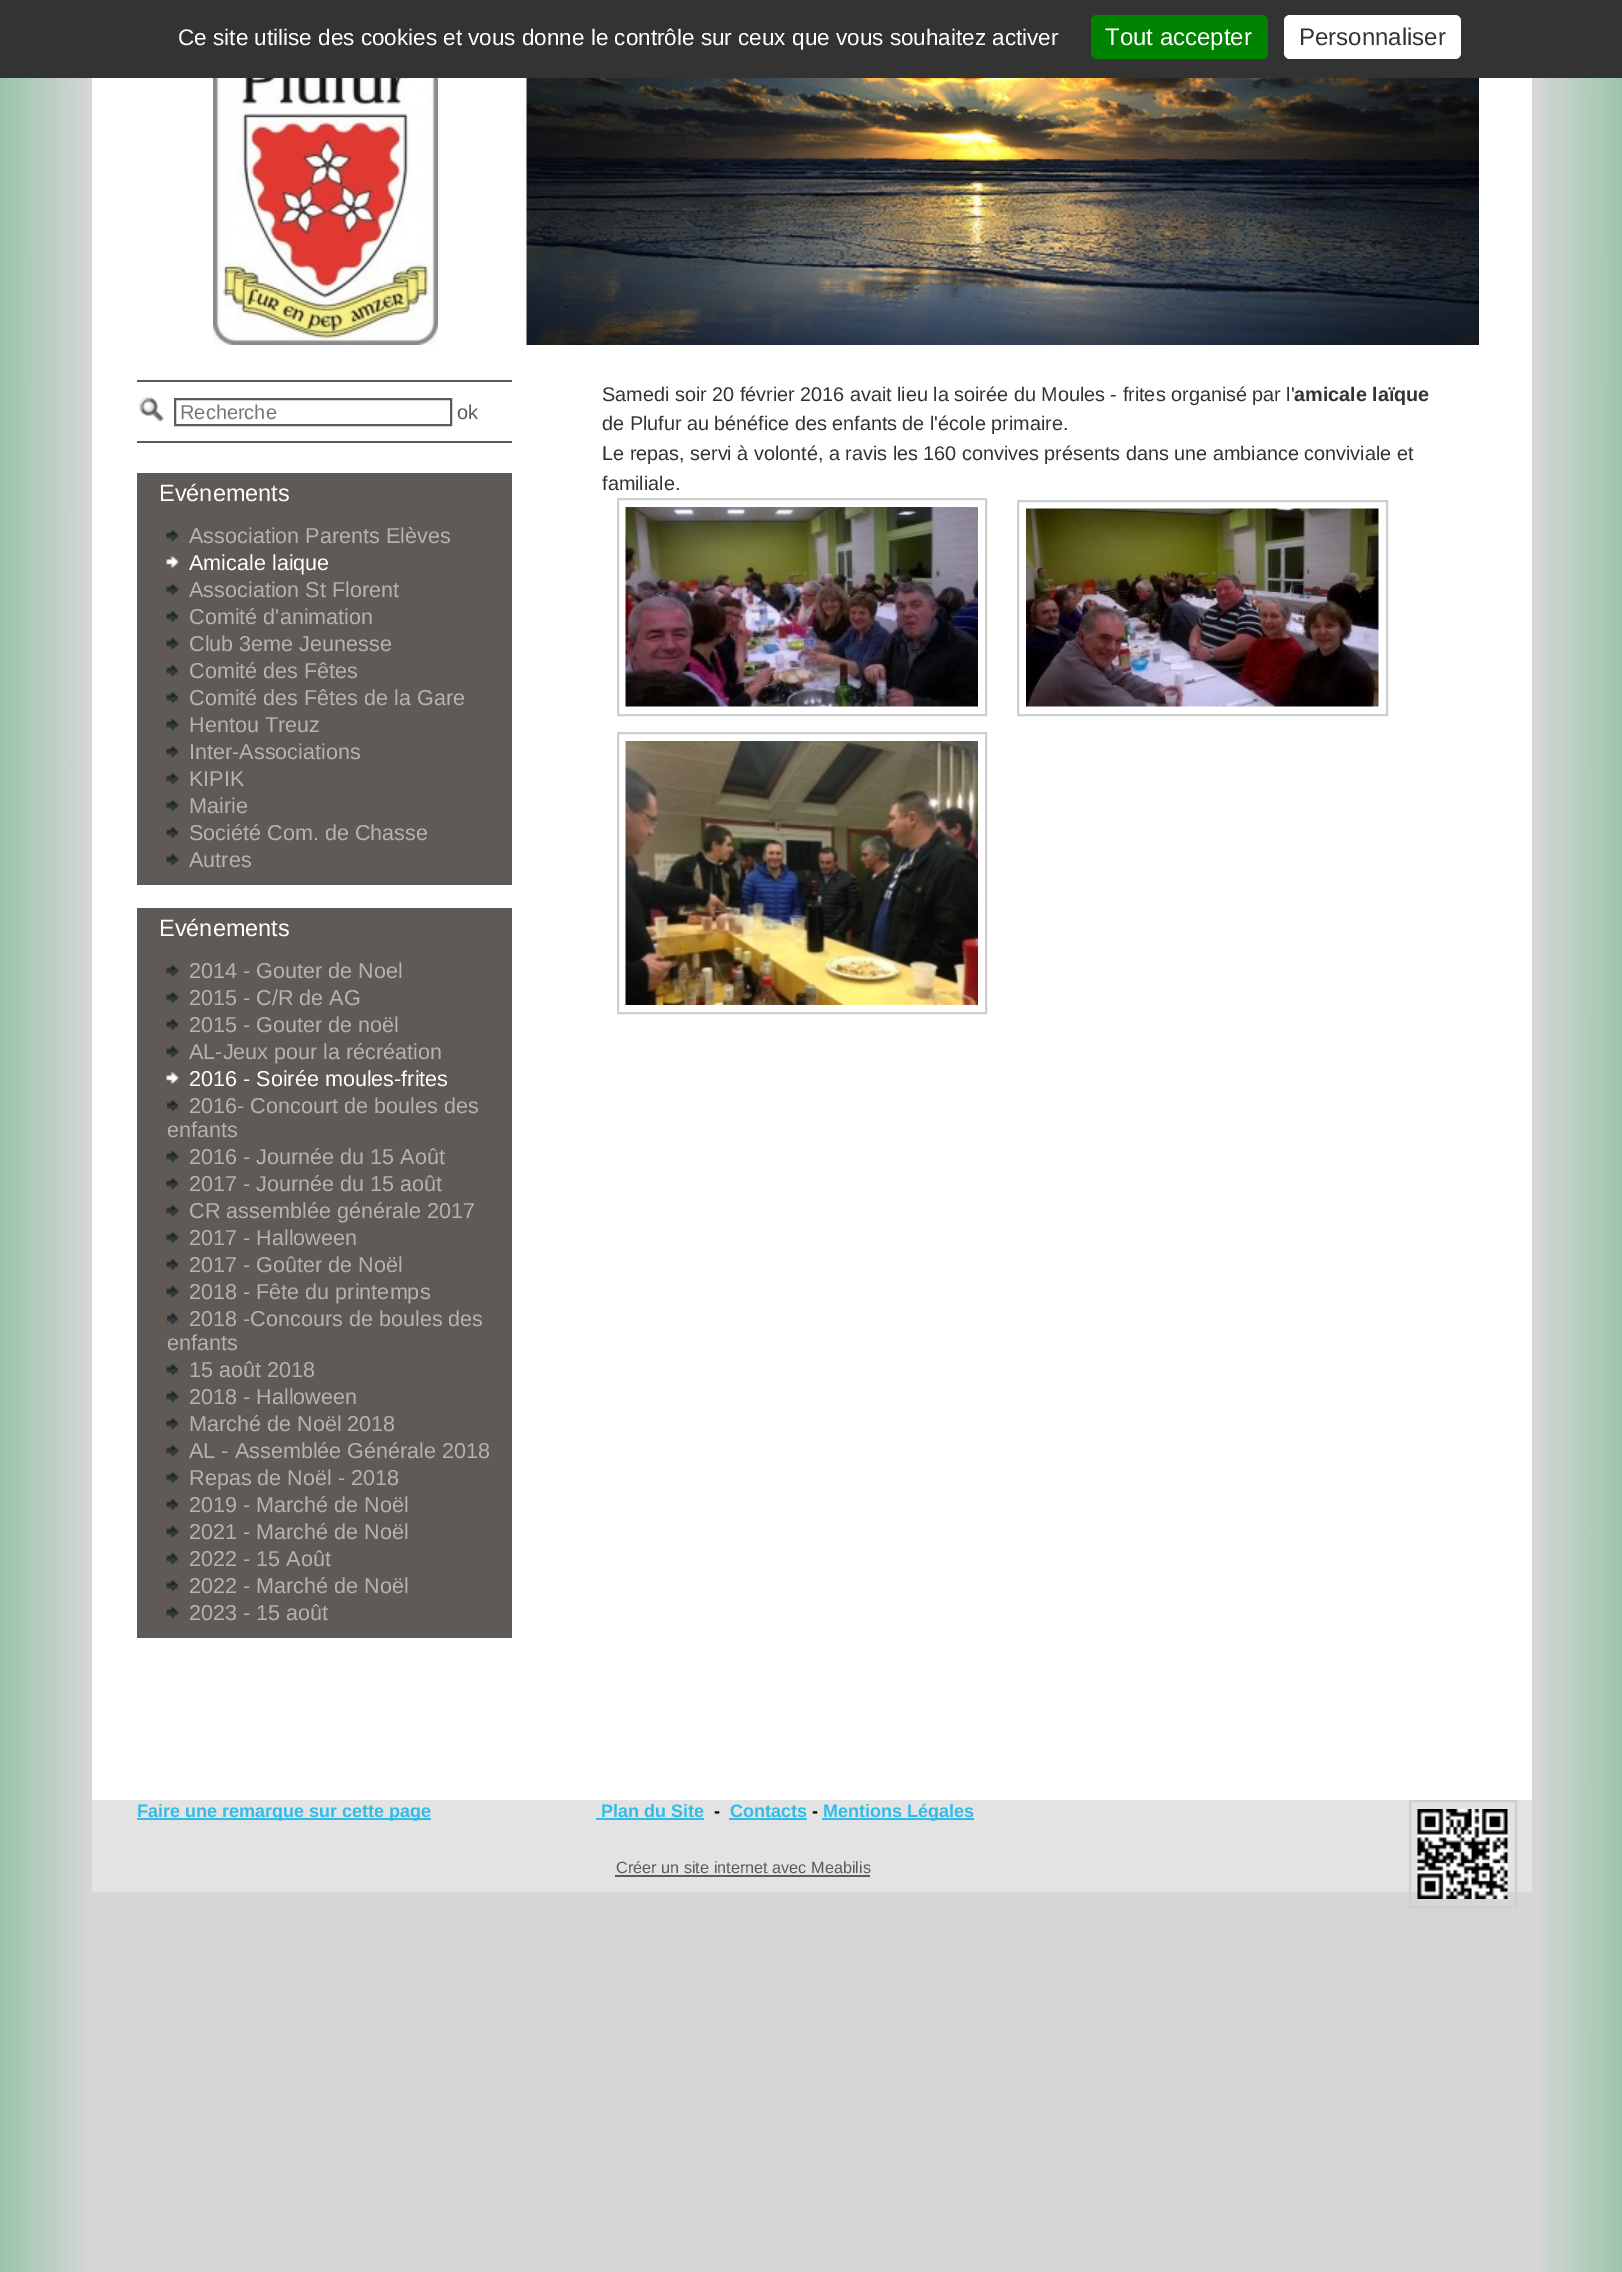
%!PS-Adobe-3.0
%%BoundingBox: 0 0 1622 2272
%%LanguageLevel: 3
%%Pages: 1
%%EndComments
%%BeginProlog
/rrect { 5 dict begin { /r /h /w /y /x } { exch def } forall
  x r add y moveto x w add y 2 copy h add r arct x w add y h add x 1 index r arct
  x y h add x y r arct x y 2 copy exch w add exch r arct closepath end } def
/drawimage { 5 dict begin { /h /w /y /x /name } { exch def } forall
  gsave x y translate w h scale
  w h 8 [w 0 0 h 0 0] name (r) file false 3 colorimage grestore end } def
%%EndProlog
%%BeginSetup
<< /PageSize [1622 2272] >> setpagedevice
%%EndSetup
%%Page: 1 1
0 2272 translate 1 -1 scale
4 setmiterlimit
0.498 0.741 0.588 setrgbcolor
0 0 1622 2272 rectfill
(images/1.raw) 0 78 1622 2194 drawimage
0.2 setgray
0 0 1622 78 rectfill
0 0.514 0 setrgbcolor
1091 15 177 44 6 rrect fill
1 setgray
1284 15 177 44 6 rrect fill
92 78 1440 1722 rectfill
(images/2.raw) 213 78 225 267 drawimage
(images/3.raw) 526 78 953 267 drawimage
0.376 0.353 0.341 setrgbcolor
137 380 375 2 rectfill
(images/4.raw) 139 397 25 25 drawimage
137 441 375 2 rectfill
2 setlinewidth
175 399 276 26 rectstroke
137 473 375 412 rectfill
(images/5.raw) 166 529 13 13 drawimage
(images/6.raw) 166 555 13 14 drawimage
(images/5.raw) 166 583 13 13 drawimage
(images/5.raw) 166 610 13 13 drawimage
(images/5.raw) 166 637 13 13 drawimage
(images/5.raw) 166 664 13 13 drawimage
(images/5.raw) 166 691 13 13 drawimage
(images/5.raw) 166 718 13 13 drawimage
(images/5.raw) 166 745 13 13 drawimage
(images/5.raw) 166 772 13 13 drawimage
(images/5.raw) 166 799 13 13 drawimage
(images/5.raw) 166 826 13 13 drawimage
(images/5.raw) 166 853 13 13 drawimage
137 908 375 730 rectfill
(images/5.raw) 166 964 13 13 drawimage
(images/5.raw) 166 991 13 13 drawimage
(images/5.raw) 166 1018 13 13 drawimage
(images/5.raw) 166 1045 13 13 drawimage
(images/6.raw) 166 1071 13 14 drawimage
(images/7.raw) 167 1099 12 13 drawimage
(images/5.raw) 166 1150 13 13 drawimage
(images/5.raw) 166 1177 13 13 drawimage
(images/5.raw) 166 1204 13 13 drawimage
(images/5.raw) 166 1231 13 13 drawimage
(images/5.raw) 166 1258 13 13 drawimage
(images/5.raw) 166 1285 13 13 drawimage
(images/7.raw) 167 1312 12 13 drawimage
(images/5.raw) 166 1363 13 13 drawimage
(images/5.raw) 166 1390 13 13 drawimage
(images/5.raw) 166 1417 13 13 drawimage
(images/5.raw) 166 1444 13 13 drawimage
(images/5.raw) 166 1471 13 13 drawimage
(images/5.raw) 166 1498 13 13 drawimage
(images/5.raw) 166 1525 13 13 drawimage
(images/5.raw) 166 1552 13 13 drawimage
(images/5.raw) 166 1579 13 13 drawimage
(images/5.raw) 166 1606 13 13 drawimage
0.812 setgray
618 499 368 216 rectstroke
1018 501 369 214 rectstroke
(images/8.raw) 625 507 353 200 drawimage
(images/9.raw) 1026 508 353 199 drawimage
618 733 368 280 rectstroke
(images/10.raw) 625 741 353 264 drawimage
0.894 0.89 0.89 setrgbcolor
92 1800 1440 92 rectfill
0.192 0.733 0.914 setrgbcolor
137 1818 294 2 rectfill
596 1818 108 2 rectfill
729 1818 78 2 rectfill
822 1818 152 2 rectfill
0.812 setgray
1410 1801 106 106 rectstroke
(images/11.raw) 1417 1809 91 90 drawimage
0.376 0.353 0.341 setrgbcolor
615 1875 255 2 rectfill
/LiberationSans-Regular [22.5 0 0 -22.5 0 0] selectfont
1 setgray
178 45 moveto (Ce site utilise des cookies et vous donne le contrôle sur ceux que vous souhaitez activer) show
/LiberationSans-Regular [24 0 0 -24 0 0] selectfont
1105 45 moveto (Tout accepter) show
0.2 setgray
1299 45 moveto (Personnaliser) show
/LiberationSans-Regular [20 0 0 -20 0 0] selectfont
0.459 setgray
180 419 moveto (Recherche) show
0.376 0.353 0.341 setrgbcolor
457 419 moveto (ok) show
/LiberationSans-Regular [23.5 0 0 -23.5 0 0] selectfont
1 setgray
159 501 moveto (Evénements) show
/LiberationSans-Regular [21.6 0 0 -21.6 0 0] selectfont
0.702 setgray
189 543 moveto (Association Parents Elèves) show
1 setgray
189 570 moveto (Amicale laique) show
0.702 setgray
189 597 moveto (Association St Florent) show
189 624 moveto (Comité d'animation) show
189 651 moveto (Club 3eme Jeunesse) show
189 678 moveto (Comité des Fêtes) show
189 705 moveto (Comité des Fêtes de la Gare) show
189 732 moveto (Hentou Treuz) show
189 759 moveto (Inter-Associations) show
189 786 moveto (KIPIK) show
189 813 moveto (Mairie) show
189 840 moveto (Société Com. de Chasse) show
189 867 moveto (Autres) show
/LiberationSans-Regular [23.5 0 0 -23.5 0 0] selectfont
1 setgray
159 936 moveto (Evénements) show
/LiberationSans-Regular [21.6 0 0 -21.6 0 0] selectfont
0.702 setgray
189 978 moveto (2014 - Gouter de Noel) show
189 1005 moveto (2015 - C/R de AG) show
189 1032 moveto (2015 - Gouter de noël) show
189 1059 moveto (AL-Jeux pour la récréation) show
1 setgray
189 1086 moveto (2016 - Soirée moules-frites) show
0.702 setgray
189 1113 moveto (2016- Concourt de boules des) show
167 1137 moveto (enfants) show
189 1164 moveto (2016 - Journée du 15 Août) show
189 1191 moveto (2017 - Journée du 15 août) show
189 1218 moveto (CR assemblée générale 2017) show
189 1245 moveto (2017 - Halloween) show
189 1272 moveto (2017 - Goûter de Noël) show
189 1299 moveto (2018 - Fête du printemps) show
189 1326 moveto (2018 -Concours de boules des) show
167 1350 moveto (enfants) show
189 1377 moveto (15 août 2018) show
189 1404 moveto (2018 - Halloween) show
189 1431 moveto (Marché de Noël 2018) show
189 1458 moveto (AL - Assemblée Générale 2018) show
189 1485 moveto (Repas de Noël - 2018) show
189 1512 moveto (2019 - Marché de Noël) show
189 1539 moveto (2021 - Marché de Noël) show
189 1566 moveto (2022 - 15 Août) show
189 1593 moveto (2022 - Marché de Noël) show
189 1620 moveto (2023 - 15 août) show
/LiberationSans-Regular [19.8 0 0 -19.8 0 0] selectfont
0.2 setgray
602 401 moveto (Samedi soir 20 février 2016 avait lieu la soirée du Moules - frites organisé par l') show
/LiberationSans-Bold [19.8 0 0 -19.8 0 0] selectfont
1294 401 moveto (amicale laïque) show
/LiberationSans-Regular [19.8 0 0 -19.8 0 0] selectfont
602 430 moveto (de Plufur au bénéfice des enfants de l'école primaire.) show
602 460 moveto (Le repas, servi à volonté, a ravis les 160 convives présents dans une ambiance conviviale et) show
602 490 moveto (familiale.) show
/LiberationSans-Bold [18 0 0 -18 0 0] selectfont
0.192 0.733 0.914 setrgbcolor
137 1817 moveto (Faire une remarque sur cette page) show
601 1817 moveto (Plan du Site) show
0 setgray
714 1817 moveto (-) show
0.192 0.733 0.914 setrgbcolor
730 1817 moveto (Contacts) show
0 setgray
812 1817 moveto (-) show
0.192 0.733 0.914 setrgbcolor
823 1817 moveto (Mentions Légales) show
/LiberationSans-Regular [16.25 0 0 -16.25 0 0] selectfont
0.376 0.353 0.341 setrgbcolor
616 1873 moveto (Créer un site internet avec Meabilis) show
showpage
%%EOF
